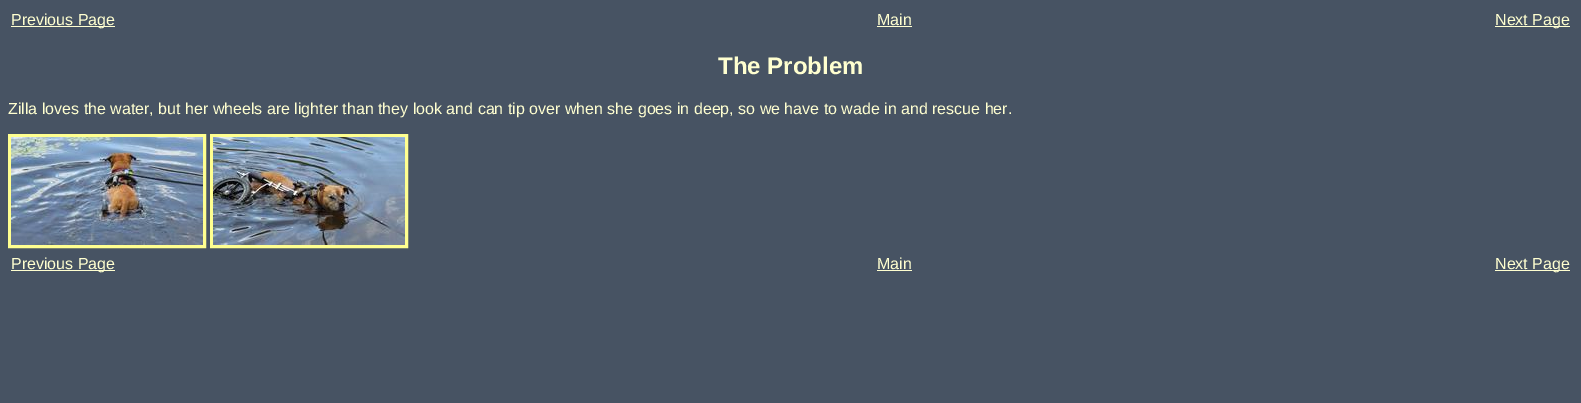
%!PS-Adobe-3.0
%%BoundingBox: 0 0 1581 403
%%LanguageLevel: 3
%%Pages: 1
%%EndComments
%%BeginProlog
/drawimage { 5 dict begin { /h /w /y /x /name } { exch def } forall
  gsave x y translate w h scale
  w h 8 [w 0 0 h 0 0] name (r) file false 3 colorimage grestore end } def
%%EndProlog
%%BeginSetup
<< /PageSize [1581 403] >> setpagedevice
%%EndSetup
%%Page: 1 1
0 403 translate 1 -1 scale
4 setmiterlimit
0.278 0.325 0.388 setrgbcolor
0 0 1581 403 rectfill
1 1 0.816 setrgbcolor
11 26 104 1 rectfill
877 26 35 1 rectfill
1495 26 75 1 rectfill
1 1 0.565 setrgbcolor
3 setlinewidth
9.5 135.5 195 111 rectstroke
211.5 135.5 195 111 rectstroke
(images/1.raw) 11 137 192 108 drawimage
(images/2.raw) 213 137 192 108 drawimage
1 1 0.816 setrgbcolor
11 270 104 1 rectfill
877 270 35 1 rectfill
1495 270 75 1 rectfill
/LiberationSans-Regular [16 0 0 -16 0 0] selectfont
11 25 moveto (Previous Page) show
877 25 moveto (Main) show
1495 25 moveto (Next Page) show
/LiberationSans-Bold [24 0 0 -24 0 0] selectfont
718 74 moveto (The Problem) show
/LiberationSans-Regular [16 0 0 -16 0 0] selectfont
8 114 moveto (Zilla loves the water, but her wheels are lighter than they look and can tip over when she goes in deep, so we have to wade in and rescue her.) show
11 269 moveto (Previous Page) show
877 269 moveto (Main) show
1495 269 moveto (Next Page) show
showpage
%%EOF
